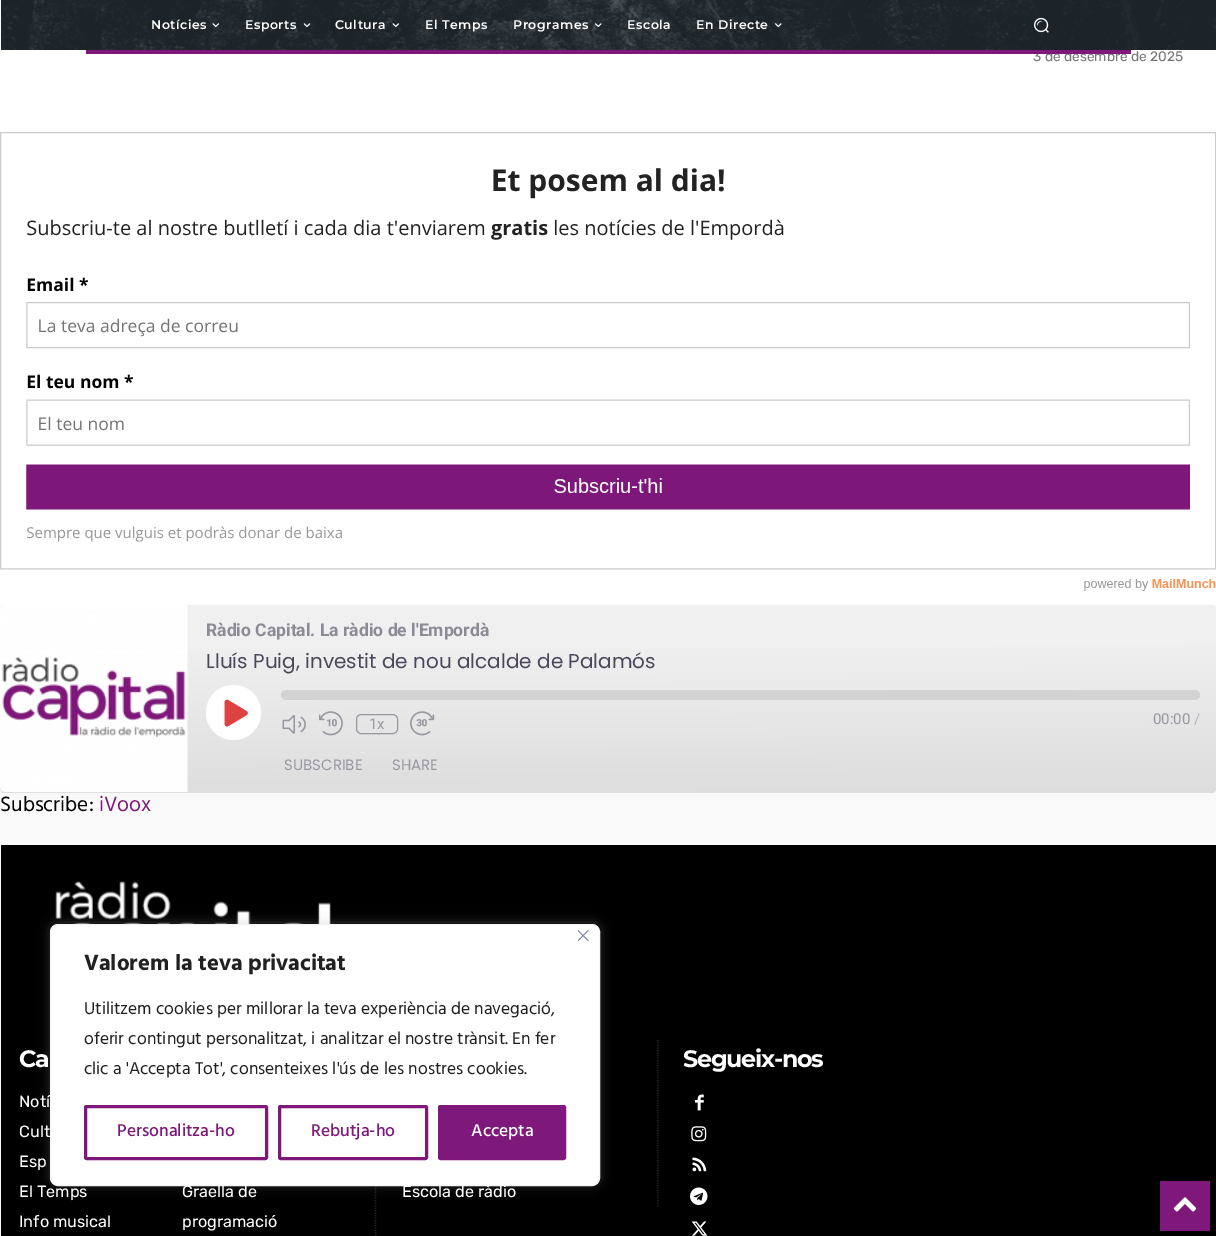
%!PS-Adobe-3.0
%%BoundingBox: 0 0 1216 1236
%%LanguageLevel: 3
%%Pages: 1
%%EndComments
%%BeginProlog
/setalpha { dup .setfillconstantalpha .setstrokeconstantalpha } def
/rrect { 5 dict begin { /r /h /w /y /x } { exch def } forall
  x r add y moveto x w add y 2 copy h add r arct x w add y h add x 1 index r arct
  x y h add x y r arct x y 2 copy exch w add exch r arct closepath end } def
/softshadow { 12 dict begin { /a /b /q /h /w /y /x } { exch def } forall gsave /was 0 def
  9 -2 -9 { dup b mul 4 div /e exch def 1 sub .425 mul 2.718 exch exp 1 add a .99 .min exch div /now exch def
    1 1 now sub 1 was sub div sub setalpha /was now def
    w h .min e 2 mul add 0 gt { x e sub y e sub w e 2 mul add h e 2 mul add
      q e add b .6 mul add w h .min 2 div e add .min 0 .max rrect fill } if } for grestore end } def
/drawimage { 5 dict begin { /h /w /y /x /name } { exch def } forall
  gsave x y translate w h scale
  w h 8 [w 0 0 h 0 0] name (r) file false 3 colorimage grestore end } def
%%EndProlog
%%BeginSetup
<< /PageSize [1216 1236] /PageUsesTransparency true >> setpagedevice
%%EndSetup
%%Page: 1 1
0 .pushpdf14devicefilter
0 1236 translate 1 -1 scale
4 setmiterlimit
0.976 setgray
0 0 1216 1236 rectfill
1 setgray
0 0 1216 605 rectfill
0.137 0.176 0.208 setrgbcolor
1 0 1215 50 rectfill
(images/1.raw) 1 0 1215 50 drawimage
(images/2.raw) 212 23 7 4 drawimage
(images/3.raw) 303 23 8 4 drawimage
(images/4.raw) 392 23 7 4 drawimage
(images/5.raw) 595 23 7 4 drawimage
(images/6.raw) 775 23 7 4 drawimage
(images/7.raw) 1034 17 15 16 drawimage
(images/8.raw) 0 132 1216 459 drawimage
gsave 0 605 1216 188 5 rrect clip newpath
<< /ShadingType 2 /ColorSpace /DeviceRGB /Coords [609 796 608 602] /Extend [true true] /Function << /FunctionType 3 /Domain [0 1] /Functions [<< /FunctionType 2 /Domain [0 1] /C0 [0.867 0.867 0.867] /C1 [0.867 0.867 0.867] /N 1 >> << /FunctionType 2 /Domain [0 1] /C0 [0.867 0.867 0.867] /C1 [0.941 0.941 0.941] /N 1 >> << /FunctionType 2 /Domain [0 1] /C0 [0.941 0.941 0.941] /C1 [0.941 0.941 0.941] /N 1 >>] /Bounds [0.01 0.78] /Encode [0 1 0 1 0 1] >> >> shfill grestore
(images/9.raw) 0 605 188 187 drawimage
1 setgray
newpath 233.5 712.5 27.5 0 360 arc closepath fill
(images/10.raw) 224 699 24 28 drawimage
0.827 setgray
281 690 919 10 5 rrect fill
(images/11.raw) 282 715 24 19 drawimage
(images/12.raw) 319 711 24 25 drawimage
0.6 0.588 0.627 setrgbcolor
356.5 714.5 41 19 4.5 rrect stroke
(images/13.raw) 410 711 25 25 drawimage
0 setgray
1 845 1215 391 rectfill
(images/14.raw) 55 881 276 43 drawimage
0.149 setgray
1.2 setlinewidth
[1.25 1.25] 0 setdash
newpath 375.5 1040 moveto 375.5 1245 lineto stroke
newpath 658 1040 moveto 658 1207.5 lineto stroke
(images/15.raw) 695 1094 9 17 drawimage
(images/16.raw) 691 1126 16 16 drawimage
(images/17.raw) 692 1157 15 15 drawimage
(images/18.raw) 690 1187 18 18 drawimage
(images/19.raw) 691 1221 17 15 drawimage
0.675 0.671 0.671 setrgbcolor
50 923 550 262 8 6 0.3 softshadow
1 setgray
50.5 924.5 549 261 7.5 rrect gsave fill grestore
0.957 setgray
1 setlinewidth
[] 0 setdash
stroke
(images/20.raw) 578 930 11 11 drawimage
0.494 0.094 0.478 setrgbcolor
3 setlinewidth
85.5 1106.5 181 52 1 rrect stroke
279.5 1106.5 147 52 1 rrect stroke
439.5 1106.5 125 52 1 rrect gsave fill grestore
stroke
1160 1181 50 50 rectfill
(images/21.raw) 1173 1197 24 15 drawimage
/Montserrat-SemiBold [12.5 0 0 -12.5 0 0] selectfont
1 setgray
151 29 moveto 0.5 0 (Notícies) ashow
245 29 moveto 0.5 0 (Esports) ashow
335 29 moveto 0.5 0 (Cultura) ashow
425 29 moveto 0.5 0 (El Temps) ashow
513 29 moveto 0.5 0 (Programes) ashow
627 29 moveto 0.5 0 (Escola) ashow
696 29 moveto 0.5 0 (En Directe) ashow
/Rubik-Regular [13.75 0 0 -13.75 0 0] selectfont
0.463 setgray
1033 61 moveto (3 de desembre de 2025) show
0.494 0.094 0.478 setrgbcolor
86 50 1045 4 rectfill
/Roboto-Bold [17.5 0 0 -17.5 0 0] selectfont
0.553 0.541 0.584 setrgbcolor
206 636 moveto (Ràdio Capital. La ràdio de l'Empordà) show
/Poppins-Regular [20 0 0 -20 0 0] selectfont
0.294 0.275 0.349 setrgbcolor
206 668 moveto (Lluís Puig, investit de nou alcalde de Palamós) show
/Roboto-Regular [15 0 0 -15 0 0] selectfont
0.6 0.588 0.627 setrgbcolor
369 729 moveto (1x) show
1153 724 moveto (00:00) show
0.722 0.714 0.737 setrgbcolor
1194 724 moveto (/) show
/Poppins-Regular [15 0 0 -15 0 0] selectfont
0.6 0.588 0.627 setrgbcolor
284 770 moveto (SUBSCRIBE) show
392 770 moveto (SHARE) show
/Hind-Regular [21.25 0 0 -21.25 0 0] selectfont
0 setgray
0 811 moveto (Subscribe:) show
0.494 0.094 0.478 setrgbcolor
99 811 moveto (iVoox) show
/Montserrat-Bold [23.75 0 0 -23.75 0 0] selectfont
1 setgray
19 1067 moveto -1.25 0 (Ca) ashow
/Rubik-Regular [16.25 0 0 -16.25 0 0] selectfont
19 1107 moveto (Notí) show
19 1137 moveto (Cult) show
19 1167 moveto (Esp) show
19 1197 moveto (El Temps) show
19 1227 moveto (Info musical) show
182 1197 moveto (Graella de) show
182 1227 moveto (programació) show
402 1197 moveto (Escola de ràdio) show
/Montserrat-Bold [23.75 0 0 -23.75 0 0] selectfont
683 1067 moveto -1.25 0 (Segueix-nos) ashow
/Hind-Bold [22.5 0 0 -22.5 0 0] selectfont
0.129 setgray
84 970 moveto (Valorem la teva privacitat) show
/Hind-Regular [17.5 0 0 -17.5 0 0] selectfont
84 1014 moveto (Utilitzem cookies per millorar la teva experiència de navegació,) show
84 1044 moveto (oferir contingut personalitzat, i analitzar el nostre trànsit. En fer) show
84 1074 moveto (clic a 'Accepta Tot', consenteixes l'ús de les nostres cookies.) show
/Hind-Medium [17.5 0 0 -17.5 0 0] selectfont
0.494 0.094 0.478 setrgbcolor
117 1136 moveto (Personalitza-ho) show
311 1136 moveto (Rebutja-ho) show
1 setgray
471 1136 moveto (Accepta) show
.poppdf14devicefilter showpage
%%EOF
